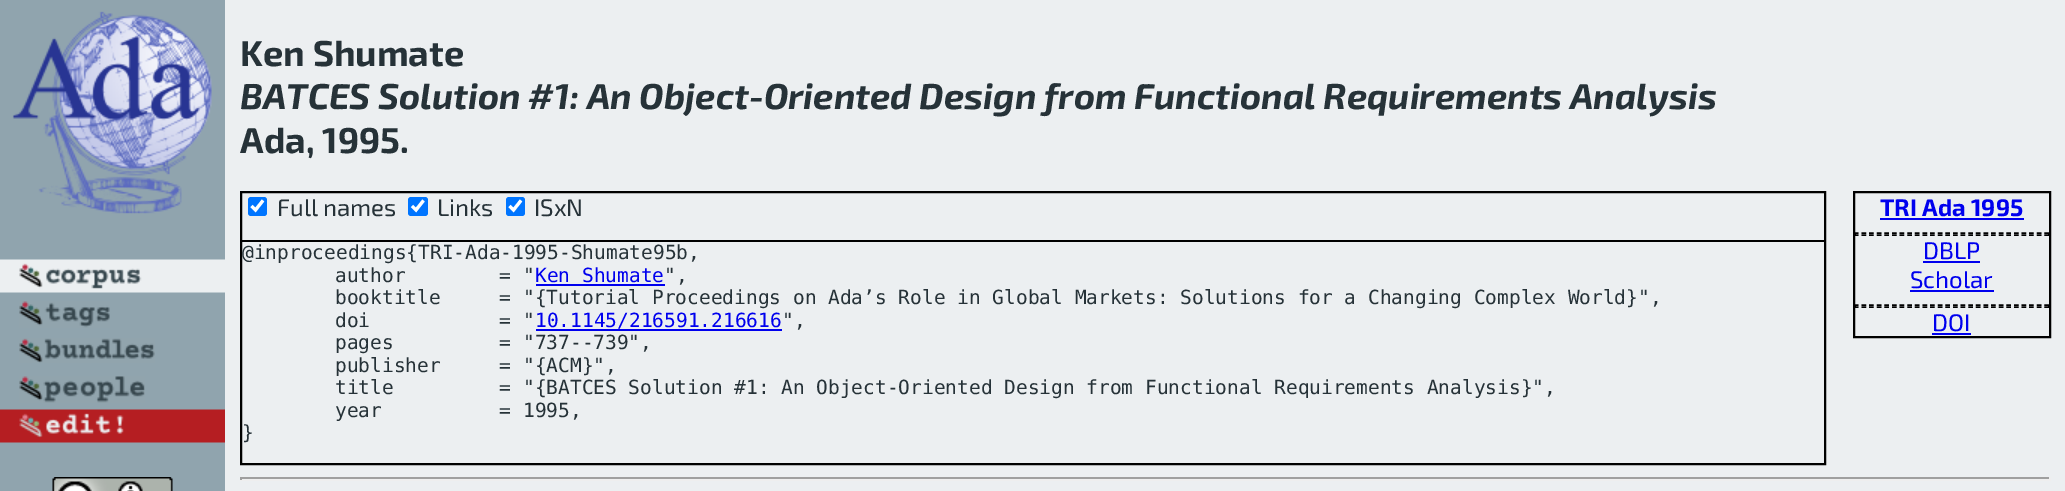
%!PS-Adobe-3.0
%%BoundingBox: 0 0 2065 491
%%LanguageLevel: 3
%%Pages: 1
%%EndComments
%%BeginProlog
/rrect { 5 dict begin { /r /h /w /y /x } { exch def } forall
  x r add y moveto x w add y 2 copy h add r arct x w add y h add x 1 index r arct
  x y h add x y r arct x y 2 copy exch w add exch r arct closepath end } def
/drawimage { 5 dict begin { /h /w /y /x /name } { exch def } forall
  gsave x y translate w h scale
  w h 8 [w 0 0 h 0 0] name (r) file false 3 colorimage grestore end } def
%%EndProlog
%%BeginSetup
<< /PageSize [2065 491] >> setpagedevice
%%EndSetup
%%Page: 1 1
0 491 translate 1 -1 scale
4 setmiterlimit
0.925 0.937 0.945 setrgbcolor
0 0 2065 491 rectfill
0.565 0.643 0.682 setrgbcolor
0 0 225 491 rectfill
(images/1.raw) 12 11 200 203 drawimage
(images/2.raw) 0 259 225 34 drawimage
(images/3.raw) 19 301 91 27 drawimage
(images/4.raw) 19 338 136 25 drawimage
(images/5.raw) 19 376 126 27 drawimage
(images/6.raw) 0 409 225 34 drawimage
(images/7.raw) 52 477 121 14 drawimage
0 setgray
2 setlinewidth
241 192 1584 272 rectstroke
0 0.459 1 setrgbcolor
248 197 19 19 3 rrect fill
1 setgray
3.1 setlinewidth
newpath 251.5 206 moveto 255.5 210 lineto 263 200.5 lineto stroke
0 0.459 1 setrgbcolor
408 197 20 19 3 rrect fill
1 setgray
newpath 412 206 moveto 416 210 lineto 423.5 200.5 lineto stroke
0 0.459 1 setrgbcolor
506 197 19 19 3 rrect fill
1 setgray
newpath 509.5 206 moveto 513.5 210 lineto 521 200.5 lineto stroke
0 setgray
242 240 1582 2 rectfill
0 0 0.933 setrgbcolor
536 284 129 2 rectfill
536 329 246 2 rectfill
0 setgray
2 setlinewidth
1854 192 196 145 rectstroke
0 0 0.933 setrgbcolor
1880 218 144 2 rectfill
0 setgray
1.5 setlinewidth
[4.5 3.12] 0 setdash
newpath 1854 233 moveto 2049 233 lineto stroke
2048 233 1 3 rectfill
newpath 1854 235 moveto 2049 235 lineto stroke
1855 233 1 3 rectfill
0 0 0.933 setrgbcolor
1923 261 57 2 rectfill
1910 290 84 2 rectfill
0 setgray
newpath 1854 305 moveto 2049 305 lineto stroke
2048 305 1 3 rectfill
newpath 1854 307 moveto 2049 307 lineto stroke
1855 305 1 3 rectfill
0 0 0.933 setrgbcolor
1932 333 39 2 rectfill
0.624 setgray
240 477 1811 2 rectfill
0.933 setgray
2049 477 2 3 rectfill
240 479 1811 2 rectfill
0.624 setgray
240 477 2 3 rectfill
/Exo2-Bold [36 0 0 -36 0 0] selectfont
0.149 0.196 0.22 setrgbcolor
240 66 moveto (Ken Shumate) show
/Exo2-BoldItalic [36 0 0 -36 0 0] selectfont
240 109 moveto (BATCES Solution #1: An Object-Oriented Design from Functional Requirements Analysis) show
/Exo2-Bold [36 0 0 -36 0 0] selectfont
240 153 moveto (Ada, 1995.) show
/Exo2-Regular [24 0 0 -24 0 0] selectfont
277 216 moveto (Full names) show
437 216 moveto (Links) show
534 216 moveto (ISxN) show
/DejaVuSansMono-Regular [19.5 0 0 -19.5 0 0] selectfont
242 259 moveto (@inproceedings{TRI-Ada-1995-Shumate95b,) show
335 282 moveto (author        = ") show
0 0 0.933 setrgbcolor
535 282 moveto (Ken Shumate) show
0.149 0.196 0.22 setrgbcolor
664 282 moveto (",) show
335 304 moveto (booktitle     = "{Tutorial Proceedings on Ada’s Role in Global Markets: Solutions for a Changing Complex World}",) show
335 327 moveto (doi           = ") show
0 0 0.933 setrgbcolor
535 327 moveto (10.1145/216591.216616) show
0.149 0.196 0.22 setrgbcolor
782 327 moveto (",) show
335 349 moveto (pages         = "737--739",) show
335 372 moveto (publisher     = "{ACM}",) show
335 394 moveto (title         = "{BATCES Solution #1: An Object-Oriented Design from Functional Requirements Analysis}",) show
335 417 moveto (year          = 1995,) show
242 439 moveto (}) show
/Exo2-Bold [24 0 0 -24 0 0] selectfont
0 0 0.933 setrgbcolor
1880 216 moveto (TRI Ada 1995) show
/Exo2-Regular [24 0 0 -24 0 0] selectfont
1923 259 moveto (DBLP) show
1910 288 moveto (Scholar) show
1932 331 moveto (DOI) show
showpage
%%EOF
